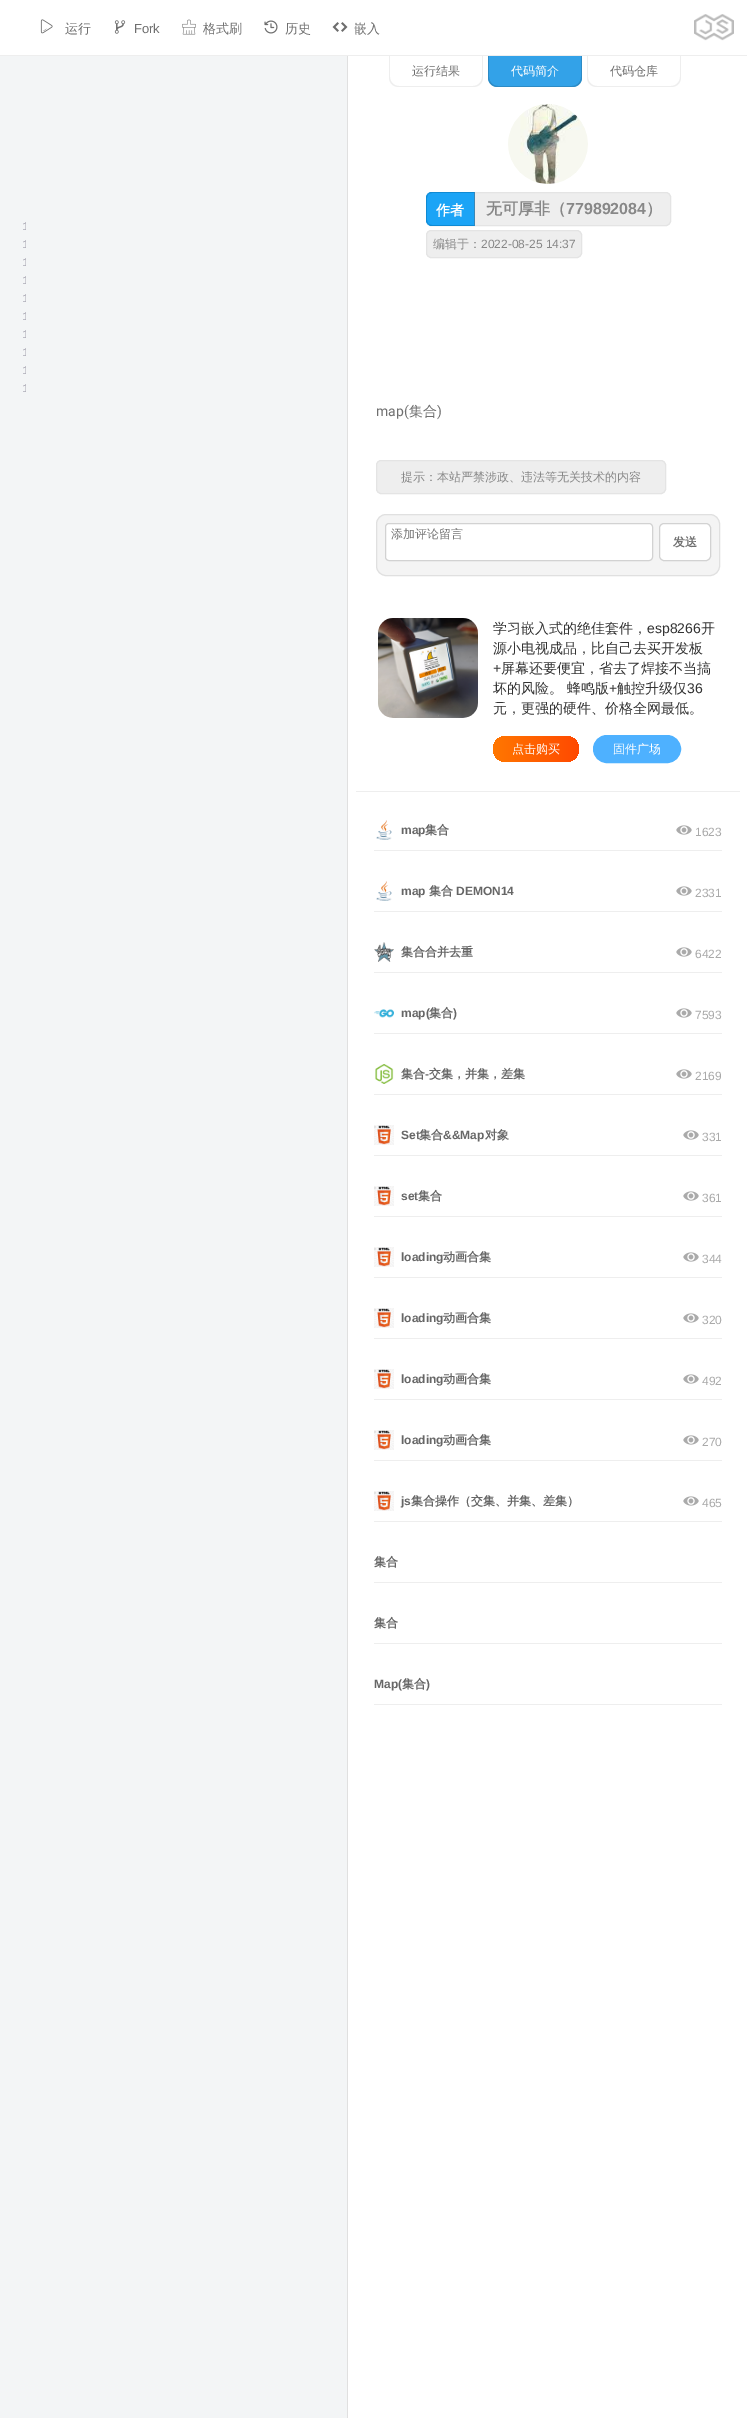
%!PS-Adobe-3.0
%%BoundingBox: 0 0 747 2418
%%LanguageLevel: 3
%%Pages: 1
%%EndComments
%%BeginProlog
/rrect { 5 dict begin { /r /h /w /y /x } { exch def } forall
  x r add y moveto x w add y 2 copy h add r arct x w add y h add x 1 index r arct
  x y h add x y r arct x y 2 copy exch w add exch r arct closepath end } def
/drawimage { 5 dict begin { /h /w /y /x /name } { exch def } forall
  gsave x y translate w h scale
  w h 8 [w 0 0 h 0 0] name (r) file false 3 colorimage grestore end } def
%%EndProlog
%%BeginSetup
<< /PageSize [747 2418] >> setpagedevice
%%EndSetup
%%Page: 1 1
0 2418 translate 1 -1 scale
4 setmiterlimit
0.953 0.961 0.965 setrgbcolor
0 0 747 2418 rectfill
0.933 setgray
0 55 747 1 rectfill
1 setgray
0 0 747 55 rectfill
(images/1.raw) 40 19 13 15 drawimage
(images/2.raw) 114 20 12 14 drawimage
(images/3.raw) 182 19 14 16 drawimage
(images/4.raw) 264 20 14 14 drawimage
(images/5.raw) 332 22 16 10 drawimage
(images/6.raw) 694 14 40 27 drawimage
0.878 setgray
347 56 1 2362 rectfill
1 setgray
348 56 399 2362 rectfill
0.933 setgray
newpath 389 56 moveto 483 56 lineto 483 77 lineto 483 83 479 87 473 87 curveto 399 87 lineto 393 87 389 83 389 77 curveto closepath 390 56 moveto 482 56 lineto 482 77 lineto 482 82 478 86 473 86 curveto 399 86 lineto 394 86 390 82 390 77 curveto closepath eofill
0.2 0.635 0.91 setrgbcolor
newpath 488 56 moveto 582 56 lineto 582 77 lineto 582 82.5 577.5 87 572 87 curveto 498 87 lineto 492.5 87 488 82.5 488 77 curveto closepath fill
0.176 0.545 0.773 setrgbcolor
newpath 488 56 moveto 582 56 lineto 582 77 lineto 582 83 578 87 572 87 curveto 498 87 lineto 492 87 488 83 488 77 curveto closepath 489 56 moveto 581 56 lineto 581 77 lineto 581 82 577 86 572 86 curveto 498 86 lineto 493 86 489 82 489 77 curveto closepath eofill
0.933 setgray
newpath 587 56 moveto 681 56 lineto 681 77 lineto 681 83 677 87 671 87 curveto 597 87 lineto 591 87 587 83 587 77 curveto closepath 588 56 moveto 680 56 lineto 680 77 lineto 680 82 676 86 671 86 curveto 597 86 lineto 592 86 588 82 588 77 curveto closepath eofill
(images/7.raw) 508 104 80 80 drawimage
426.5 192.5 244 33 4.5 rrect gsave fill grestore
0.894 setgray
stroke
0.106 0.643 0.965 setrgbcolor
newpath 432 192 moveto 475 192 lineto 475 226 lineto 432 226 lineto 428.5 226 426 223.5 426 220 curveto 426 198 lineto 426 194.5 428.5 192 432 192 curveto closepath fill
0.063 0.541 0.827 setrgbcolor
newpath 432 192 moveto 430 192 429 193 428 194 curveto 429 194 430 193 432 193 curveto 474 193 lineto 475 192 lineto closepath fill
0.235 0.529 0.71 setrgbcolor
newpath 475 192 moveto 474 193 lineto 474 225 lineto 475 226 lineto closepath fill
0.063 0.541 0.827 setrgbcolor
newpath 475 226 moveto 474 225 lineto 432 225 lineto 430 225 429 224 428 224 curveto 429 225 430 226 432 226 curveto closepath 426 198 moveto 426 220 lineto 426 221.5 427 223 428 224 curveto 428.5 223.5 lineto 427.5 223 427 221.5 427 220 curveto 427 198 lineto 427 196.5 427.5 195 428.5 194.5 curveto 428 194 lineto 427 195 426 196.5 426 198 curveto closepath fill
0.933 setgray
426.5 230.5 155 27 4.5 rrect gsave fill grestore
0.894 setgray
stroke
0.933 setgray
376.5 460.5 289 33 4.5 rrect gsave fill grestore
0.894 setgray
stroke
0.957 setgray
376.5 514.5 343 61 9.5 rrect gsave fill grestore
0.878 setgray
stroke
1 setgray
385.5 523.5 267 37 3.5 rrect gsave fill grestore
0.824 setgray
stroke
1 setgray
659.5 523.5 51 37 4.5 rrect gsave fill grestore
0.824 setgray
stroke
(images/8.raw) 378 618 100 100 drawimage
gsave 493 736 86 26 13 rrect clip newpath
<< /ShadingType 2 /ColorSpace /DeviceRGB /Coords [493 749 579 749] /Extend [true true] /Function << /FunctionType 2 /Domain [0 1] /C0 [1 0.467 0] /C1 [1 0.286 0] /N 1 >> >> shfill grestore
0.306 0.694 1 setrgbcolor
593.5 735.5 87 27 13.5 rrect gsave fill grestore
0.306 0.698 1 setrgbcolor
stroke
0.933 setgray
356 791 384 1 rectfill
374 850 348 1 rectfill
(images/9.raw) 376 820 16 20 drawimage
(images/10.raw) 676 825 16 10 drawimage
374 911 348 1 rectfill
(images/9.raw) 376 881 16 20 drawimage
(images/10.raw) 676 886 16 10 drawimage
374 972 348 1 rectfill
(images/11.raw) 374 942 20 20 drawimage
(images/10.raw) 676 947 16 10 drawimage
374 1033 348 1 rectfill
(images/12.raw) 374 1009 20 9 drawimage
(images/10.raw) 676 1008 16 10 drawimage
374 1094 348 1 rectfill
(images/13.raw) 375 1064 19 20 drawimage
(images/10.raw) 676 1069 16 10 drawimage
374 1155 348 1 rectfill
(images/14.raw) 374 1125 20 20 drawimage
(images/15.raw) 374 1126 2 2 drawimage
(images/10.raw) 683 1130 16 10 drawimage
374 1216 348 1 rectfill
(images/14.raw) 374 1186 20 20 drawimage
(images/15.raw) 374 1187 2 2 drawimage
(images/10.raw) 683 1191 16 10 drawimage
374 1277 348 1 rectfill
(images/14.raw) 374 1247 20 20 drawimage
(images/15.raw) 374 1248 2 2 drawimage
(images/10.raw) 683 1252 16 10 drawimage
374 1338 348 1 rectfill
(images/14.raw) 374 1308 20 20 drawimage
(images/15.raw) 374 1309 2 2 drawimage
(images/10.raw) 683 1313 16 10 drawimage
374 1399 348 1 rectfill
(images/14.raw) 374 1369 20 20 drawimage
(images/15.raw) 374 1370 2 2 drawimage
(images/10.raw) 683 1374 16 10 drawimage
374 1460 348 1 rectfill
(images/14.raw) 374 1430 20 20 drawimage
(images/15.raw) 374 1431 2 2 drawimage
(images/10.raw) 683 1435 16 10 drawimage
374 1521 348 1 rectfill
(images/14.raw) 374 1491 20 20 drawimage
(images/15.raw) 374 1492 2 2 drawimage
(images/10.raw) 683 1496 16 10 drawimage
374 1582 348 1 rectfill
374 1643 348 1 rectfill
374 1704 348 1 rectfill
/WenQuanYiZenHei-Medium [13 0 0 -13 0 0] selectfont
0.435 setgray
65 33 moveto (运行) show
/LiberationSans-Regular [13 0 0 -13 0 0] selectfont
134 33 moveto (Fork) show
/WenQuanYiZenHei-Medium [13 0 0 -13 0 0] selectfont
203 33 moveto (格式刷) show
285 33 moveto (历史) show
354 33 moveto (嵌入) show
gsave
0 56 26 2353 rectclip
/LiberationMono-Regular [12 0 0 -12 0 0] selectfont
0.675 0.671 0.714 setrgbcolor
22 230 moveto (1) show
22 248 moveto (1) show
22 266 moveto (1) show
22 284 moveto (1) show
22 302 moveto (1) show
22 320 moveto (1) show
22 338 moveto (1) show
22 356 moveto (1) show
22 374 moveto (1) show
22 392 moveto (1) show
grestore
/WenQuanYiZenHei-Medium [12 0 0 -12 0 0] selectfont
412 75 moveto (运行结果) show
1 setgray
511 75 moveto (代码简介) show
0.435 setgray
610 75 moveto (代码仓库) show
/WenQuanYiZenHei-Bold [14 0 0 -14 0 0] selectfont
1 setgray
436 215 moveto (作者) show
/WenQuanYiZenHei-Bold [16 0 0 -16 0 0] selectfont
0.533 setgray
486 214 moveto (无可厚非（) show
/LiberationSans-Bold [16 0 0 -16 0 0] selectfont
566 214 moveto (779892084) show
/WenQuanYiZenHei-Bold [16 0 0 -16 0 0] selectfont
646 214 moveto (）) show
/WenQuanYiZenHei-Medium [12 0 0 -12 0 0] selectfont
433 248 moveto (编辑于：) show
/LiberationSans-Regular [12 0 0 -12 0 0] selectfont
481 248 moveto (2022-08-25 14:37) show
/Roboto-Regular [14 0 0 -14 0 0] selectfont
0.435 setgray
376 416 moveto (map\() show
/WenQuanYiZenHei-Medium [14 0 0 -14 0 0] selectfont
409 416 moveto (集合) show
/Roboto-Regular [14 0 0 -14 0 0] selectfont
437 416 moveto (\)) show
/WenQuanYiZenHei-Medium [12 0 0 -12 0 0] selectfont
0.533 setgray
401 481 moveto (提示：本站严禁涉政、违法等无关技术的内容) show
0.459 setgray
391 538 moveto (添加评论留言) show
/WenQuanYiZenHei-Bold [12 0 0 -12 0 0] selectfont
0.435 setgray
673 546 moveto (发送) show
/WenQuanYiZenHei-Medium [14 0 0 -14 0 0] selectfont
0.2 setgray
493 633 moveto (学习嵌入式的绝佳套件，) show
/LiberationSans-Regular [14 0 0 -14 0 0] selectfont
647 633 moveto (esp8266) show
/WenQuanYiZenHei-Medium [14 0 0 -14 0 0] selectfont
701 633 moveto (开) show
493 653 moveto (源小电视成品，比自己去买开发板) show
/LiberationSans-Regular [14 0 0 -14 0 0] selectfont
493 673 moveto (+) show
/WenQuanYiZenHei-Medium [14 0 0 -14 0 0] selectfont
501 673 moveto (屏幕还要便宜，省去了焊接不当搞) show
493 693 moveto (坏的风险。) show
567 693 moveto (蜂鸣版) show
/LiberationSans-Regular [14 0 0 -14 0 0] selectfont
609 693 moveto (+) show
/WenQuanYiZenHei-Medium [14 0 0 -14 0 0] selectfont
617 693 moveto (触控升级仅) show
/LiberationSans-Regular [14 0 0 -14 0 0] selectfont
687 693 moveto (36) show
/WenQuanYiZenHei-Medium [14 0 0 -14 0 0] selectfont
493 713 moveto (元，更强的硬件、价格全网最低。) show
/WenQuanYiZenHei-Medium [12 0 0 -12 0 0] selectfont
1 setgray
512 753 moveto (点击购买) show
613 753 moveto (固件广场) show
/LiberationSans-Bold [12 0 0 -12 0 0] selectfont
0.4 setgray
401 834 moveto (map) show
/WenQuanYiZenHei-Bold [12 0 0 -12 0 0] selectfont
425 834 moveto (集合) show
/LiberationSans-Regular [12 0 0 -12 0 0] selectfont
0.667 setgray
695 836 moveto (1623) show
/LiberationSans-Bold [12 0 0 -12 0 0] selectfont
0.4 setgray
401 895 moveto (map) show
/WenQuanYiZenHei-Bold [12 0 0 -12 0 0] selectfont
429 895 moveto (集合) show
/LiberationSans-Bold [12 0 0 -12 0 0] selectfont
456 895 moveto (DEMON14) show
/LiberationSans-Regular [12 0 0 -12 0 0] selectfont
0.667 setgray
695 897 moveto (2331) show
/WenQuanYiZenHei-Bold [12 0 0 -12 0 0] selectfont
0.4 setgray
401 956 moveto (集合合并去重) show
/LiberationSans-Regular [12 0 0 -12 0 0] selectfont
0.667 setgray
695 958 moveto (6422) show
/LiberationSans-Bold [12 0 0 -12 0 0] selectfont
0.4 setgray
401 1017 moveto (map\() show
/WenQuanYiZenHei-Bold [12 0 0 -12 0 0] selectfont
429 1017 moveto (集合) show
/LiberationSans-Bold [12 0 0 -12 0 0] selectfont
453 1017 moveto (\)) show
/LiberationSans-Regular [12 0 0 -12 0 0] selectfont
0.667 setgray
695 1019 moveto (7593) show
/WenQuanYiZenHei-Bold [12 0 0 -12 0 0] selectfont
0.4 setgray
401 1078 moveto (集合) show
/LiberationSans-Bold [12 0 0 -12 0 0] selectfont
425 1078 moveto (-) show
/WenQuanYiZenHei-Bold [12 0 0 -12 0 0] selectfont
429 1078 moveto (交集，并集，差集) show
/LiberationSans-Regular [12 0 0 -12 0 0] selectfont
0.667 setgray
695 1080 moveto (2169) show
/LiberationSans-Bold [12 0 0 -12 0 0] selectfont
0.4 setgray
401 1139 moveto (Set) show
/WenQuanYiZenHei-Bold [12 0 0 -12 0 0] selectfont
419 1139 moveto (集合) show
/LiberationSans-Bold [12 0 0 -12 0 0] selectfont
443 1139 moveto (&&Map) show
/WenQuanYiZenHei-Bold [12 0 0 -12 0 0] selectfont
485 1139 moveto (对象) show
/LiberationSans-Regular [12 0 0 -12 0 0] selectfont
0.667 setgray
702 1141 moveto (331) show
/LiberationSans-Bold [12 0 0 -12 0 0] selectfont
0.4 setgray
401 1200 moveto (set) show
/WenQuanYiZenHei-Bold [12 0 0 -12 0 0] selectfont
418 1200 moveto (集合) show
/LiberationSans-Regular [12 0 0 -12 0 0] selectfont
0.667 setgray
702 1202 moveto (361) show
/LiberationSans-Bold [12 0 0 -12 0 0] selectfont
0.4 setgray
401 1261 moveto (loading) show
/WenQuanYiZenHei-Bold [12 0 0 -12 0 0] selectfont
443 1261 moveto (动画合集) show
/LiberationSans-Regular [12 0 0 -12 0 0] selectfont
0.667 setgray
702 1263 moveto (344) show
/LiberationSans-Bold [12 0 0 -12 0 0] selectfont
0.4 setgray
401 1322 moveto (loading) show
/WenQuanYiZenHei-Bold [12 0 0 -12 0 0] selectfont
443 1322 moveto (动画合集) show
/LiberationSans-Regular [12 0 0 -12 0 0] selectfont
0.667 setgray
702 1324 moveto (320) show
/LiberationSans-Bold [12 0 0 -12 0 0] selectfont
0.4 setgray
401 1383 moveto (loading) show
/WenQuanYiZenHei-Bold [12 0 0 -12 0 0] selectfont
443 1383 moveto (动画合集) show
/LiberationSans-Regular [12 0 0 -12 0 0] selectfont
0.667 setgray
702 1385 moveto (492) show
/LiberationSans-Bold [12 0 0 -12 0 0] selectfont
0.4 setgray
401 1444 moveto (loading) show
/WenQuanYiZenHei-Bold [12 0 0 -12 0 0] selectfont
443 1444 moveto (动画合集) show
/LiberationSans-Regular [12 0 0 -12 0 0] selectfont
0.667 setgray
702 1446 moveto (270) show
/LiberationSans-Bold [12 0 0 -12 0 0] selectfont
0.4 setgray
401 1505 moveto (js) show
/WenQuanYiZenHei-Bold [12 0 0 -12 0 0] selectfont
411 1505 moveto (集合操作（交集、并集、差集）) show
/LiberationSans-Regular [12 0 0 -12 0 0] selectfont
0.667 setgray
702 1507 moveto (465) show
/WenQuanYiZenHei-Bold [12 0 0 -12 0 0] selectfont
0.4 setgray
374 1566 moveto (集合) show
374 1627 moveto (集合) show
/LiberationSans-Bold [12 0 0 -12 0 0] selectfont
374 1688 moveto (Map\() show
/WenQuanYiZenHei-Bold [12 0 0 -12 0 0] selectfont
402 1688 moveto (集合) show
/LiberationSans-Bold [12 0 0 -12 0 0] selectfont
426 1688 moveto (\)) show
showpage
%%EOF
